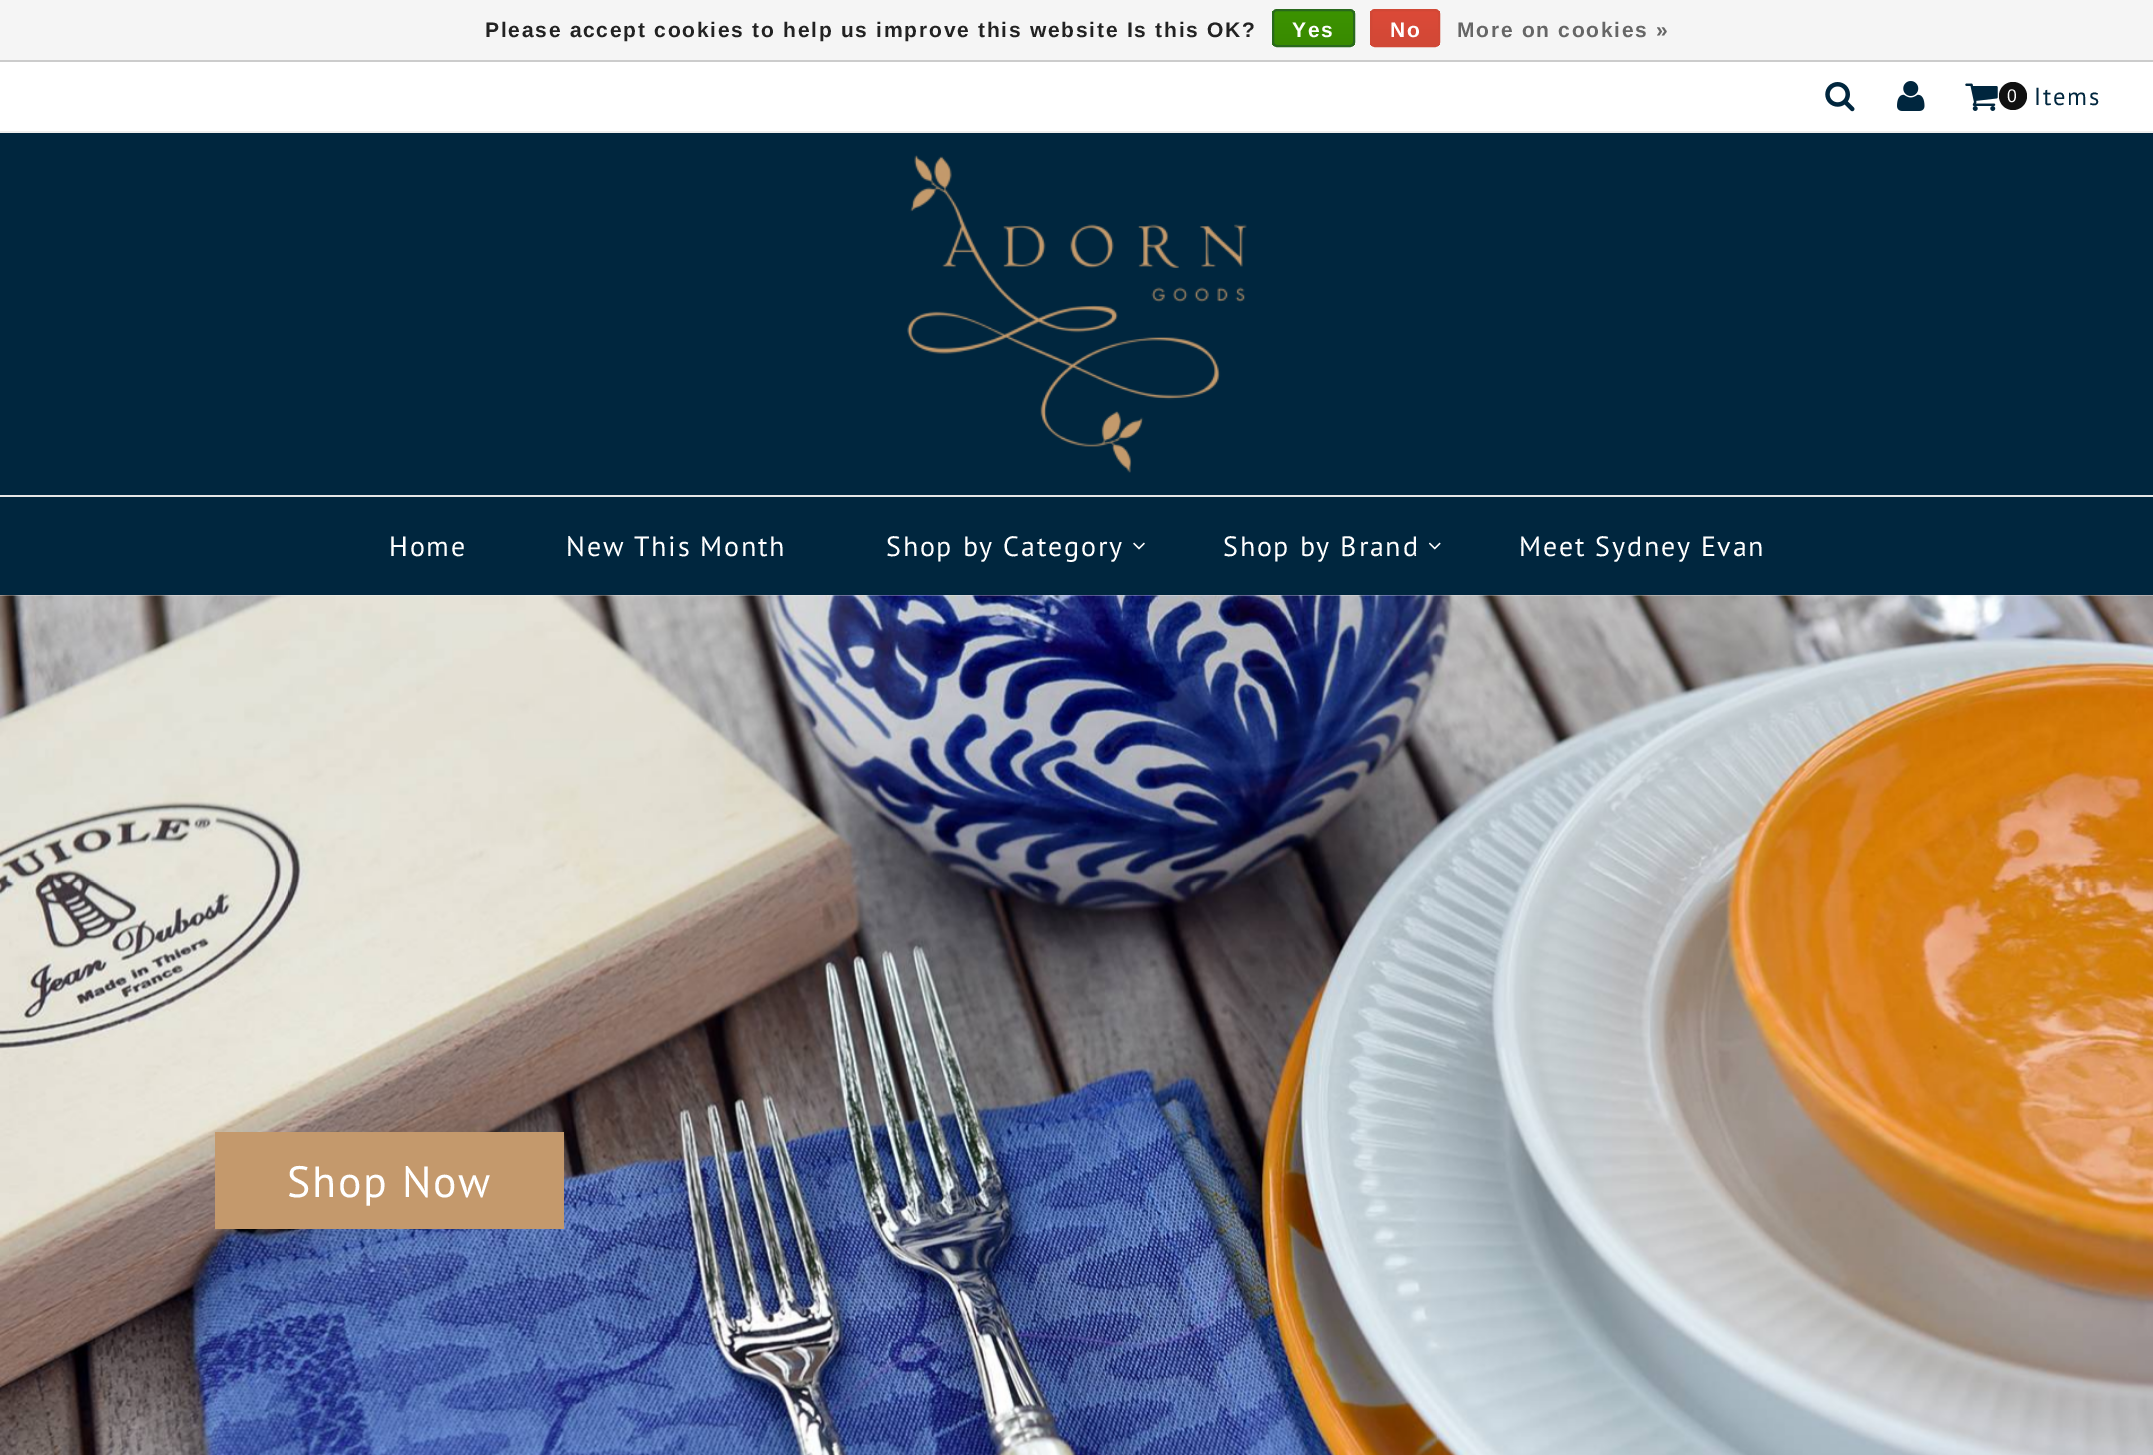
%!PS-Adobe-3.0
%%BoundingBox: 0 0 2153 1455
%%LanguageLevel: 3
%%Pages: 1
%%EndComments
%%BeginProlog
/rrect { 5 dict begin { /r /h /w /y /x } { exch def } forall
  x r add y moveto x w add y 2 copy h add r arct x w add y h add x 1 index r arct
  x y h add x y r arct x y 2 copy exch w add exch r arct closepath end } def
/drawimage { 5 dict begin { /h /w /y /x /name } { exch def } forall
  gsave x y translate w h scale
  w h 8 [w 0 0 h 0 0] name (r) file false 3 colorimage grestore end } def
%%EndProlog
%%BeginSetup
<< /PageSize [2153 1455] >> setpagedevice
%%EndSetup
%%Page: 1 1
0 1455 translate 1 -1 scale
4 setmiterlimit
1 setgray
0 0 2153 1455 rectfill
0.961 setgray
0 0 2153 60 rectfill
0.8 setgray
0 60 2153 2 rectfill
gsave
1272 9 83 38 5 rrect clip newpath
gsave newpath 1272 11 moveto 1355 11 lineto 1355 46 lineto 1272 46 lineto closepath clip newpath
<< /ShadingType 2 /ColorSpace /DeviceRGB /Coords [1313 10 1313 46] /Extend [true true] /Function << /FunctionType 2 /Domain [0 1] /C0 [0.235 0.576 0] /C1 [0.224 0.541 0] /N 1 >> >> shfill grestore
grestore
0.161 0.412 0.114 setrgbcolor
2 setlinewidth
1273 10 81 36 4 rrect stroke
gsave
1370 9 70 38 5 rrect clip newpath
gsave newpath 1370 11 moveto 1440 11 lineto 1440 46 lineto 1370 46 lineto closepath clip newpath
<< /ShadingType 2 /ColorSpace /DeviceRGB /Coords [1405 10 1405 46] /Extend [true true] /Function << /FunctionType 2 /Domain [0 1] /C0 [0.863 0.29 0.22] /C1 [0.82 0.282 0.212] /N 1 >> >> shfill grestore
grestore
0.82 0.282 0.212 setrgbcolor
1371 10 68 36 4 rrect stroke
0.933 setgray
0 131 2153 2 rectfill
(images/1.raw) 1825 82 30 30 drawimage
(images/2.raw) 1897 81 28 30 drawimage
(images/3.raw) 1965 83 33 28 drawimage
0.067 setgray
newpath 2013 96 14 0 360 arc closepath fill
0 0.149 0.243 setrgbcolor
0 133 2153 362 rectfill
0.898 setgray
0 495 2153 2 rectfill
(images/4.raw) 907 155 340 318 drawimage
0 0.149 0.243 setrgbcolor
0 497 2153 98 rectfill
(images/5.raw) 1133 542 12 8 drawimage
(images/6.raw) 1428 542 13 8 drawimage
(images/7.raw) 0 595 2153 860 drawimage
0.769 0.6 0.424 setrgbcolor
215 1132 349 97 rectfill
/LiberationSans-Bold [21 0 0 -21 0 0] selectfont
0.133 setgray
485 37 moveto 1.75 0 (Please accept cookies to help us improve this website Is this OK?) ashow
1 setgray
1292 37 moveto 1.75 0 (Yes) ashow
1390 37 moveto 1.75 0 (No) ashow
0.4 setgray
1457 37 moveto 1.75 0 (More on cookies ») ashow
/PTSans-Regular [18 0 0 -18 0 0] selectfont
1 setgray
2007 102 moveto 1.75 0 (0) ashow
/PTSans-Regular [24.5 0 0 -24.5 0 0] selectfont
0 0.149 0.243 setrgbcolor
2034 105 moveto 1.75 0 (Items) ashow
/PTSans-Regular [28 0 0 -28 0 0] selectfont
1 setgray
389 556 moveto 1.75 0 (Home) ashow
566 556 moveto 1.75 0 (New This Month) ashow
886 556 moveto 1.75 0 (Shop by Category) ashow
1223 556 moveto 1.75 0 (Shop by Brand) ashow
1519 556 moveto 1.75 0 (Meet Sydney Evan) ashow
/PTSans-Regular [43.75 0 0 -43.75 0 0] selectfont
287 1197 moveto 1.75 0 (Shop Now) ashow
showpage
%%EOF
